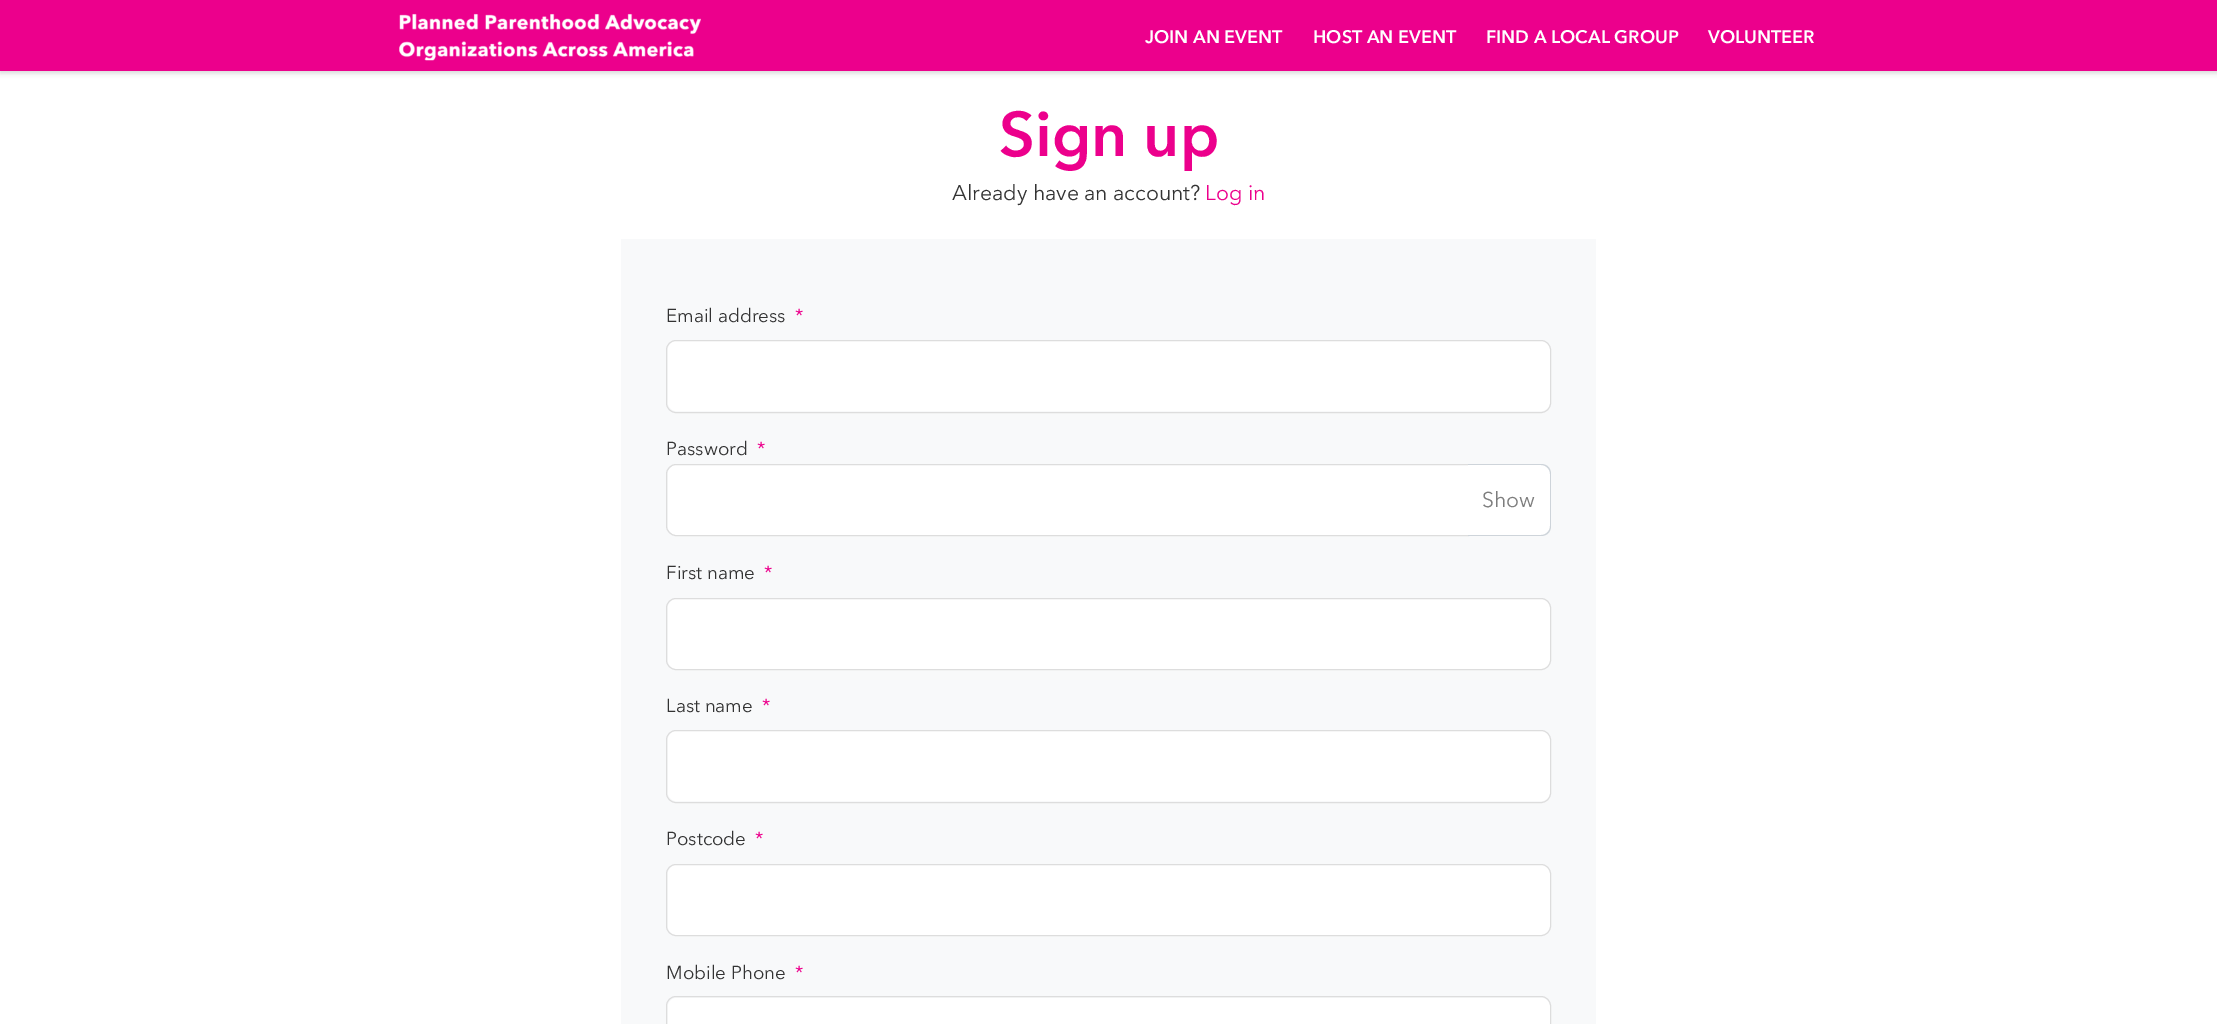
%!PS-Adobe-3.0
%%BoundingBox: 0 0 2217 1024
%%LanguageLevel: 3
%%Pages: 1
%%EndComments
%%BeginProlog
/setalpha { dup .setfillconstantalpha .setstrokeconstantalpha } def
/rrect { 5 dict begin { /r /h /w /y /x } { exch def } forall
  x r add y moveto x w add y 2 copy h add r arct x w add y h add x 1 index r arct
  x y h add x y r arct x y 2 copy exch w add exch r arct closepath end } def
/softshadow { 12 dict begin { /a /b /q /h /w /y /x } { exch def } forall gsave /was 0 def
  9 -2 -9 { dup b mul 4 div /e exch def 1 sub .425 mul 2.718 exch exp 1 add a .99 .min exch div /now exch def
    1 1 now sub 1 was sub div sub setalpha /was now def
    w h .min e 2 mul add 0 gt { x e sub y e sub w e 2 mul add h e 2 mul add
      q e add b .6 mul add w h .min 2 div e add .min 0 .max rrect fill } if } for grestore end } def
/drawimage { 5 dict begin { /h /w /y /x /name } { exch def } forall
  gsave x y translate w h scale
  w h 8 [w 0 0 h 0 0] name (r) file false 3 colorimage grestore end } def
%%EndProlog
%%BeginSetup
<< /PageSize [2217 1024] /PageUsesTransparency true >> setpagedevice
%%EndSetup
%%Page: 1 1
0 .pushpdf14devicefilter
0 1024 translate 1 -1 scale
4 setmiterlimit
1 setgray
0 0 2217 1024 rectfill
0.2 setgray
0 1 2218 72 0 2.5 0.2 softshadow
0.925 0 0.549 setrgbcolor
0 0 2217 71 rectfill
(images/1.raw) 399 13 302 48 drawimage
0.973 0.976 0.98 setrgbcolor
621 239 975 785 rectfill
1 setgray
668 341 882 70 9 rrect fill
0.867 setgray
666.5 340.5 884 72 9.5 rrect stroke
1 setgray
newpath 677 465 moveto 1468 465 lineto 1468 535 lineto 677 535 lineto 672 535 668 531 668 526 curveto 668 474 lineto 668 469 672 465 677 465 curveto closepath fill
0.867 setgray
newpath 676 464.5 moveto 1468.5 464.5 lineto 1468.5 535.5 lineto 676 535.5 lineto 671 535.5 666.5 531 666.5 526 curveto 666.5 474 lineto 666.5 469 671 464.5 676 464.5 curveto closepath stroke
1 setgray
newpath 1468 464 moveto 1541 464 lineto 1546.5 464 1551 468.5 1551 474 curveto 1551 526 lineto 1551 531.5 1546.5 536 1541 536 curveto 1468 536 lineto closepath fill
0.808 0.831 0.855 setrgbcolor
newpath 1468 464 moveto 1541 464 lineto 1547 464 1551 468 1551 474 curveto 1551 526 lineto 1551 532 1547 536 1541 536 curveto 1468 536 lineto closepath 1468 465 moveto 1541 465 lineto 1546 465 1550 469 1550 474 curveto 1550 526 lineto 1550 531 1546 535 1541 535 curveto 1468 535 lineto closepath eofill
1 setgray
668 599 882 70 9 rrect fill
0.867 setgray
666.5 598.5 884 71 9.5 rrect stroke
1 setgray
668 731 882 70 9 rrect fill
0.867 setgray
666.5 730.5 884 72 9.5 rrect stroke
1 setgray
668 865 882 70 9 rrect fill
0.867 setgray
666.5 864.5 884 71 9.5 rrect stroke
1 setgray
668 998 882 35 9 rrect fill
0.867 setgray
666.5 996.5 884 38 9.5 rrect stroke
/AvenirNext-Bold [18 0 0 -18 0 0] selectfont
1 setgray
1145 43 moveto (JOIN AN EVENT) show
1313 43 moveto (HOST AN EVENT) show
1486 43 moveto (FIND A LOCAL GROUP) show
1708 43 moveto (VOLUNTEER) show
/AvenirNext-Bold [62.5 0 0 -62.5 0 0] selectfont
0.925 0 0.549 setrgbcolor
999 156 moveto (Sign up) show
/AvenirNext-Regular [21.25 0 0 -21.25 0 0] selectfont
0.2 setgray
952 200 moveto (Already have an account?) show
0.925 0 0.549 setrgbcolor
1205 200 moveto (Log in) show
/AvenirNext-Regular [18.75 0 0 -18.75 0 0] selectfont
0.2 setgray
666 322 moveto (Email address) show
0.925 0 0.549 setrgbcolor
795 322 moveto (*) show
0.2 setgray
666 455 moveto (Password) show
0.925 0 0.549 setrgbcolor
757 455 moveto (*) show
/AvenirNext-Regular [21.25 0 0 -21.25 0 0] selectfont
0.49 setgray
1482 507 moveto (Show) show
/AvenirNext-Regular [18.75 0 0 -18.75 0 0] selectfont
0.2 setgray
666 579 moveto (First name) show
0.925 0 0.549 setrgbcolor
764 579 moveto (*) show
0.2 setgray
666 712 moveto (Last name) show
0.925 0 0.549 setrgbcolor
762 712 moveto (*) show
0.2 setgray
666 845 moveto (Postcode) show
0.925 0 0.549 setrgbcolor
755 845 moveto (*) show
0.2 setgray
666 979 moveto (Mobile Phone) show
0.925 0 0.549 setrgbcolor
795 979 moveto (*) show
.poppdf14devicefilter showpage
%%EOF
